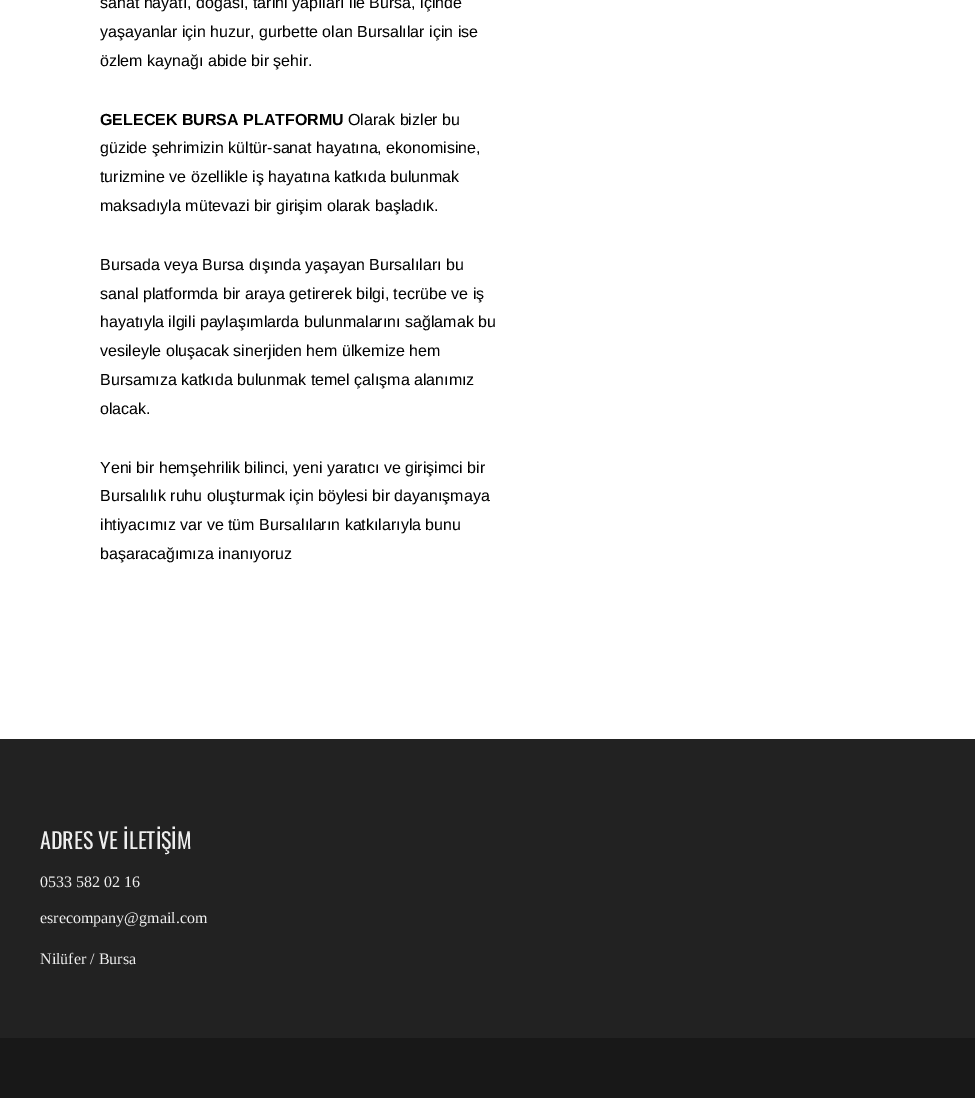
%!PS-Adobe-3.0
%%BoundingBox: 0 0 975 1098
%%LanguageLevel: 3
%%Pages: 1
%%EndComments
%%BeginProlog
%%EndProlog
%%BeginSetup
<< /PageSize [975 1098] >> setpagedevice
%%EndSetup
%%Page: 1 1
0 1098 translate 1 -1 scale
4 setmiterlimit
1 setgray
0 0 975 1098 rectfill
0.133 setgray
0 739 975 299 rectfill
0.094 setgray
0 1038 975 60 rectfill
/LiberationSans-Regular [16 0 0 -16 0 0] selectfont
0 setgray
100 8 moveto (sanat hayatı, doğası, tarihi yapıları ile Bursa, içinde) show
100 37 moveto (yaşayanlar için huzur, gurbette olan Bursalılar için ise) show
100 66 moveto (özlem kaynağı abide bir şehir.) show
/LiberationSans-Bold [16 0 0 -16 0 0] selectfont
100 125 moveto (GELECEK BURSA PLATFORMU) show
/LiberationSans-Regular [16 0 0 -16 0 0] selectfont
348 125 moveto (Olarak bizler bu) show
100 153 moveto (güzide şehrimizin kültür-sanat hayatına, ekonomisine,) show
100 182 moveto (turizmine ve özellikle iş hayatına katkıda bulunmak) show
100 211 moveto (maksadıyla mütevazi bir girişim olarak başladık.) show
100 270 moveto (Bursada veya Bursa dışında yaşayan Bursalıları bu) show
100 299 moveto (sanal platformda bir araya getirerek bilgi, tecrübe ve iş) show
100 327 moveto (hayatıyla ilgili paylaşımlarda bulunmalarını sağlamak bu) show
100 356 moveto (vesileyle oluşacak sinerjiden hem ülkemize hem) show
100 385 moveto (Bursamıza katkıda bulunmak temel çalışma alanımız) show
100 414 moveto (olacak.) show
100 473 moveto (Yeni bir hemşehrilik bilinci, yeni yaratıcı ve girişimci bir) show
100 501 moveto (Bursalılık ruhu oluşturmak için böylesi bir dayanışmaya) show
100 530 moveto (ihtiyacımız var ve tüm Bursalıların katkılarıyla bunu) show
100 559 moveto (başaracağımıza inanıyoruz) show
/Oswald-Regular [22 0 0 -22 0 0] selectfont
0.933 setgray
40 849 moveto (ADRES VE İLETİŞİM) show
/LiberationSerif-Regular [16 0 0 -16 0 0] selectfont
40 887 moveto (0533 582 02 16) show
40 923 moveto (esrecompany@gmail.com) show
40 964 moveto (Nilüfer / Bursa) show
showpage
%%EOF
